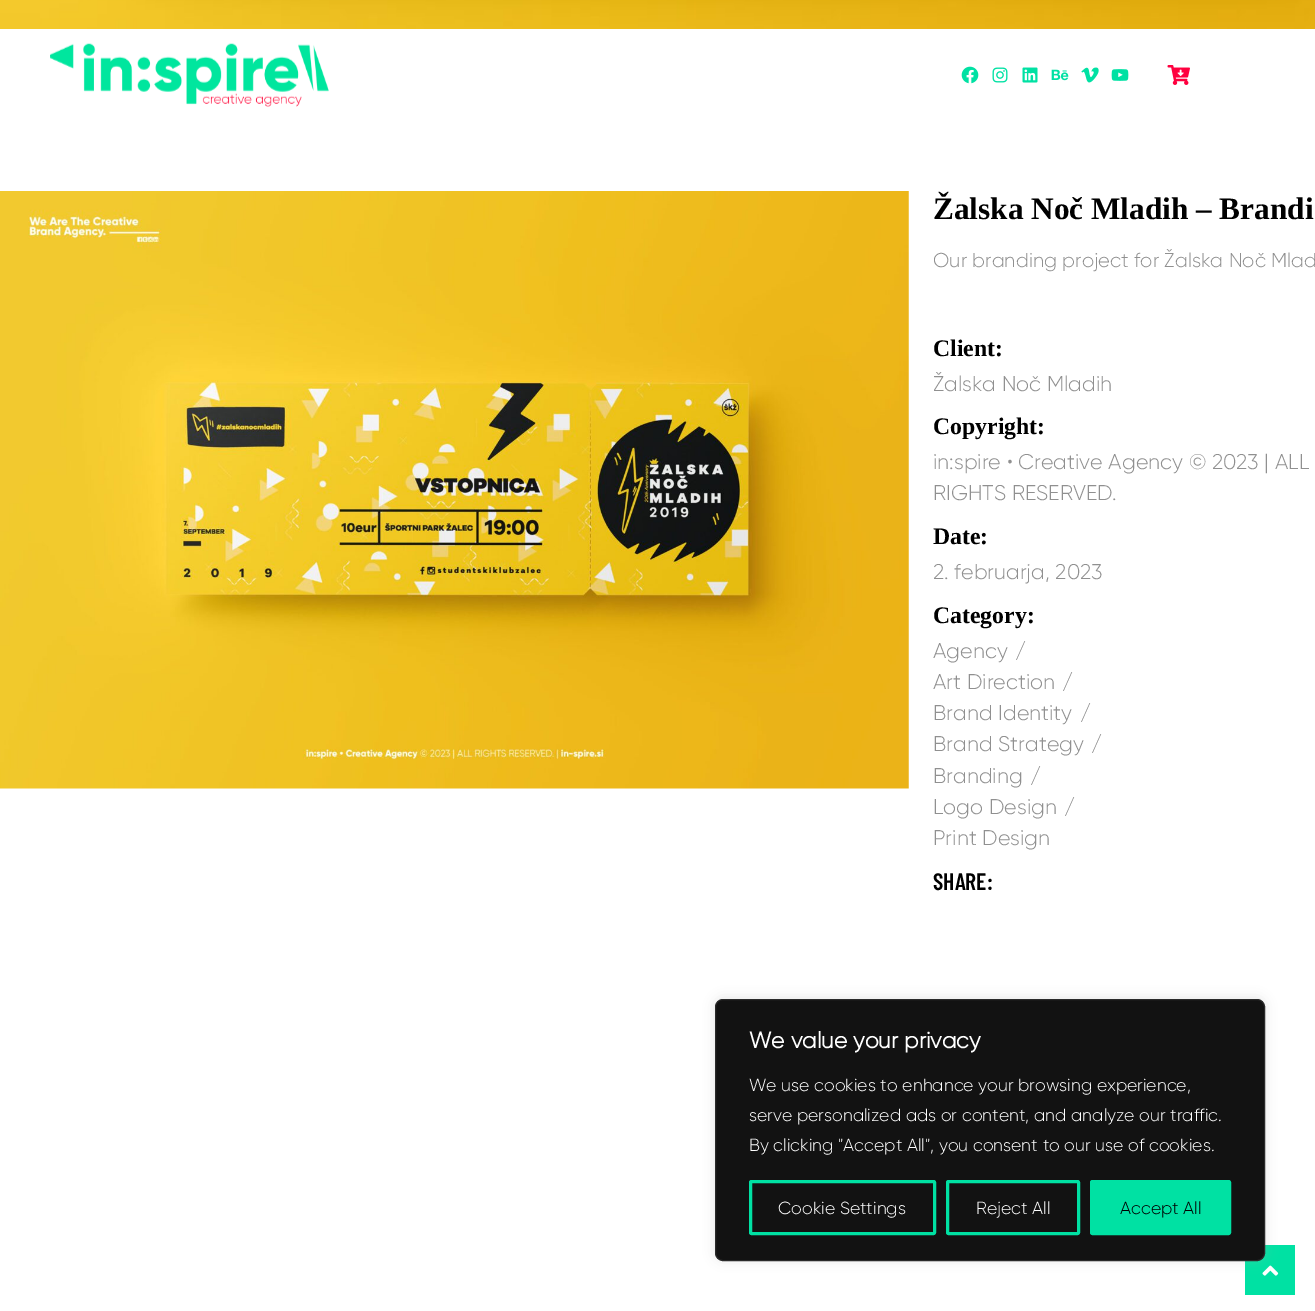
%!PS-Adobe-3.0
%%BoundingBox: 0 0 1315 1311
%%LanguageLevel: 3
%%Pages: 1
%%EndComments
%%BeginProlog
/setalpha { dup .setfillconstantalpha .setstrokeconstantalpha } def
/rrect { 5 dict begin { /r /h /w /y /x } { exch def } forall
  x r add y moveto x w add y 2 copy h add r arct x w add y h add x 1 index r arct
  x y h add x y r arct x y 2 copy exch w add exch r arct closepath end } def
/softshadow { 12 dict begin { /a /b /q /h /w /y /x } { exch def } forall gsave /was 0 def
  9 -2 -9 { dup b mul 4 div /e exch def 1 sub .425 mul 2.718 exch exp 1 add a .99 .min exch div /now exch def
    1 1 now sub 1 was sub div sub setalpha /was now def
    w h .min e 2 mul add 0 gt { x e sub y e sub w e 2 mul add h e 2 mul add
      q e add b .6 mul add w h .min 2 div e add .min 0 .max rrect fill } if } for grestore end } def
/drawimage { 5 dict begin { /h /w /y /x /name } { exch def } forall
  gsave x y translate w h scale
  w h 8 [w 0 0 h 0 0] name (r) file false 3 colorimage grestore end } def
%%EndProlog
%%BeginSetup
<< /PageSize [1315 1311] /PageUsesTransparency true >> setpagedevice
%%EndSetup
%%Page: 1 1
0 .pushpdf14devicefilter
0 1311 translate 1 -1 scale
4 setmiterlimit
1 setgray
0 0 1315 1311 rectfill
(images/1.raw) 50 43 279 64 drawimage
(images/2.raw) 961 66 18 18 drawimage
(images/3.raw) 992 67 16 16 drawimage
(images/4.raw) 1022 67 16 16 drawimage
(images/5.raw) 1051 69 18 12 drawimage
(images/6.raw) 1081 67 18 16 drawimage
(images/7.raw) 1111 69 18 12 drawimage
(images/8.raw) 1167 65 23 20 drawimage
(images/9.raw) 0 0 1315 29 drawimage
(images/10.raw) 0 191 909 598 drawimage
0 0.882 0.639 setrgbcolor
1245 1245 50 50 rectfill
(images/11.raw) 1262 1265 17 11 drawimage
0.675 0.671 0.671 setrgbcolor
715 998 550 262 8 6 0.3 softshadow
0.071 setgray
715.5 999.5 549 261 7.5 rrect gsave fill grestore
0.165 setgray
stroke
0 0.882 0.639 setrgbcolor
3 setlinewidth
750.5 1181.5 184 52 1 rrect stroke
947.5 1181.5 131 52 1 rrect stroke
1091.5 1181.5 138 52 1 rrect gsave fill grestore
stroke
/LiberationSerif-Bold [31.25 0 0 -31.25 0 0] selectfont
0 setgray
933 219 moveto (Žalska Noč Mladih – Brandi) show
/Gilroy-Light [20 0 0 -20 0 0] selectfont
0.565 setgray
933 267 moveto (Our branding project for Žalska Noč Mlad) show
/LiberationSerif-Bold [23.75 0 0 -23.75 0 0] selectfont
0 setgray
933 356 moveto (Client:) show
/Gilroy-Light [21.25 0 0 -21.25 0 0] selectfont
0.565 setgray
933 391 moveto (Žalska Noč Mladih) show
/LiberationSerif-Bold [23.75 0 0 -23.75 0 0] selectfont
0 setgray
933 434 moveto (Copyright:) show
/Gilroy-Light [21.25 0 0 -21.25 0 0] selectfont
0.565 setgray
933 469 moveto (in:spire • Creative Agency © 2023 | ALL) show
933 500 moveto (RIGHTS RESERVED.) show
/LiberationSerif-Bold [23.75 0 0 -23.75 0 0] selectfont
0 setgray
933 544 moveto (Date:) show
/Gilroy-Light [21.25 0 0 -21.25 0 0] selectfont
0.565 setgray
933 579 moveto (2. februarja, 2023) show
/LiberationSerif-Bold [23.75 0 0 -23.75 0 0] selectfont
0 setgray
933 623 moveto (Category:) show
/Gilroy-Light [21.25 0 0 -21.25 0 0] selectfont
0.565 setgray
933 658 moveto (Agency) show
1015 658 moveto (/) show
933 689 moveto (Art Direction) show
1062 689 moveto (/) show
933 720 moveto (Brand Identity) show
1080 720 moveto (/) show
933 751 moveto (Brand Strategy) show
1091 751 moveto (/) show
933 783 moveto (Branding) show
1030 783 moveto (/) show
933 814 moveto (Logo Design) show
1064 814 moveto (/) show
933 845 moveto (Print Design) show
/BarlowCondensed-SemiBold [23.75 0 0 -23.75 0 0] selectfont
0 setgray
933 890 moveto (SHARE:) show
/Gilroy-Bold [22.5 0 0 -22.5 0 0] selectfont
1 setgray
749 1048 moveto (We value your privacy) show
/Gilroy-Light [17.5 0 0 -17.5 0 0] selectfont
749 1091 moveto (We use cookies to enhance your browsing experience,) show
749 1121 moveto (serve personalized ads or content, and analyze our traffic.) show
749 1151 moveto (By clicking "Accept All", you consent to our use of cookies.) show
778 1214 moveto (Cookie Settings) show
976 1214 moveto (Reject All) show
0 setgray
1120 1214 moveto (Accept All) show
.poppdf14devicefilter showpage
%%EOF
